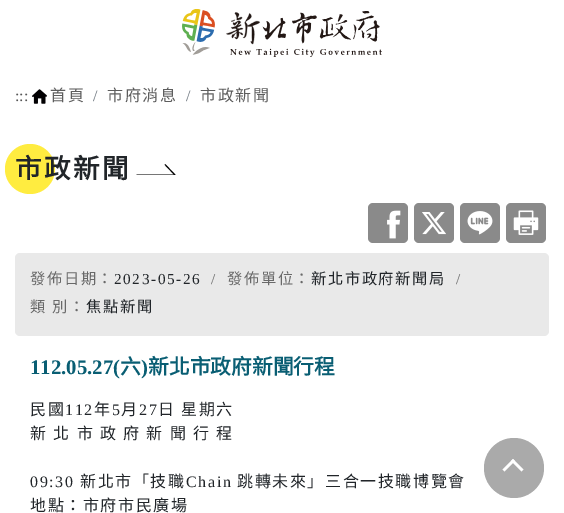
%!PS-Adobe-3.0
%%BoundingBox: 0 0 564 513
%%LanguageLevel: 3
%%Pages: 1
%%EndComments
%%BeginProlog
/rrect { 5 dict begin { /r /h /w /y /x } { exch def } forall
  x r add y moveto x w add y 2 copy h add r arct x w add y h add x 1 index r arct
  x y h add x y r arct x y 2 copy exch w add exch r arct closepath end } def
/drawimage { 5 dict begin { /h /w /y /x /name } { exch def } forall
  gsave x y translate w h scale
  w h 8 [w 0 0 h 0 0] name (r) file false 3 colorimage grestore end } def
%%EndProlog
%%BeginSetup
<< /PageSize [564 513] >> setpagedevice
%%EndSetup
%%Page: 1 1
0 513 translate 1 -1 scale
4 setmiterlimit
1 setgray
0 0 564 513 rectfill
(images/1.raw) 182 9 200 48 drawimage
(images/2.raw) 32 89 15 15 drawimage
1 0.925 0.251 setrgbcolor
newpath 30 169 25 0 360 arc closepath fill
gsave
136 163 40 12 rectclip
0 setgray
newpath 136.5 175 moveto 175 175 lineto 165 164.5 lineto stroke
grestore
0.541 setgray
368 203 40 40 5 rrect fill
(images/3.raw) 387 210 14 29 drawimage
414 203 40 40 5 rrect fill
(images/4.raw) 422 212 24 23 drawimage
460 203 40 40 5 rrect fill
(images/5.raw) 467 211 26 24 drawimage
506 203 40 40 5 rrect fill
(images/6.raw) 513 210 26 25 drawimage
0.914 setgray
15 253 534 83 5 rrect fill
0.667 setgray
newpath 514 468 30 0 360 arc closepath fill
1 setgray
newpath 513 459 moveto 523.5 469.5 lineto 521.5 471.5 lineto 511 461 lineto closepath fill
newpath 513 459 moveto 515 461 lineto 504.5 471.5 lineto 502.5 469.5 lineto closepath fill
/LiberationSerif-Regular [16 0 0 -16 0 0] selectfont
0.333 setgray
15 101 moveto (:::) show
/NotoSansCJKTC-Regular [16 0 0 -16 0 0] selectfont
0.365 setgray
50 101 moveto 1.6 0 (首頁) ashow
/LiberationSerif-Regular [16 0 0 -16 0 0] selectfont
0.424 0.459 0.49 setrgbcolor
93 101 moveto 1.6 0 (/) ashow
/NotoSansCJKTC-Regular [16 0 0 -16 0 0] selectfont
0.365 setgray
107 101 moveto 1.6 0 (市府消息) ashow
/LiberationSerif-Regular [16 0 0 -16 0 0] selectfont
0.424 0.459 0.49 setrgbcolor
186 101 moveto 1.6 0 (/) ashow
/NotoSansCJKTC-Regular [16 0 0 -16 0 0] selectfont
0.365 setgray
200 101 moveto 1.6 0 (市政新聞) ashow
/NotoSansCJKTC-Bold [26.5 0 0 -26.5 0 0] selectfont
0.129 0.145 0.161 setrgbcolor
15 178 moveto 2.5 0 (市政新聞) ashow
/NotoSansCJKTC-Regular [15.25 0 0 -15.25 0 0] selectfont
0.412 setgray
30 284 moveto 1.6 0 (發佈日期：) ashow
/LiberationSerif-Regular [15.25 0 0 -15.25 0 0] selectfont
0.129 0.145 0.161 setrgbcolor
114 284 moveto 1.6 0 (2023-05-26) ashow
0.412 setgray
211 284 moveto 1.6 0 (/) ashow
/NotoSansCJKTC-Regular [15.25 0 0 -15.25 0 0] selectfont
227 284 moveto 1.6 0 (發佈單位：) ashow
0.129 0.145 0.161 setrgbcolor
311 284 moveto 1.6 0 (新北市政府新聞局) ashow
/LiberationSerif-Regular [15.25 0 0 -15.25 0 0] selectfont
0.412 setgray
456 284 moveto 1.6 0 (/) ashow
/NotoSansCJKTC-Regular [15.25 0 0 -15.25 0 0] selectfont
30 312 moveto 1.6 0 (類 別：) ashow
0.129 0.145 0.161 setrgbcolor
86 312 moveto 1.6 0 (焦點新聞) ashow
/LiberationSerif-Bold [20.75 0 0 -20.75 0 0] selectfont
0.035 0.369 0.451 setrgbcolor
30 374 moveto (112.05.27\() show
/NotoSansCJKTC-Bold [20.75 0 0 -20.75 0 0] selectfont
120 374 moveto (六) show
/LiberationSerif-Bold [20.75 0 0 -20.75 0 0] selectfont
141 374 moveto (\)) show
/NotoSansCJKTC-Bold [20.75 0 0 -20.75 0 0] selectfont
148 374 moveto (新北市政府新聞行程) show
/NotoSansCJKTC-Regular [16 0 0 -16 0 0] selectfont
0.129 0.145 0.161 setrgbcolor
30 415 moveto 1.6 0 (民國) ashow
/LiberationSerif-Regular [16 0 0 -16 0 0] selectfont
65 415 moveto 1.6 0 (112) ashow
/NotoSansCJKTC-Regular [16 0 0 -16 0 0] selectfont
94 415 moveto 1.6 0 (年) ashow
/LiberationSerif-Regular [16 0 0 -16 0 0] selectfont
112 415 moveto 1.6 0 (5) ashow
/NotoSansCJKTC-Regular [16 0 0 -16 0 0] selectfont
121 415 moveto 1.6 0 (月) ashow
/LiberationSerif-Regular [16 0 0 -16 0 0] selectfont
139 415 moveto 1.6 0 (27) ashow
/NotoSansCJKTC-Regular [16 0 0 -16 0 0] selectfont
158 415 moveto 0.5 0 32 1.6 0 (日 星期六) awidthshow
30 439 moveto 0.5 0 32 1.6 0 (新 北 市 政 府 新 聞 行 程) awidthshow
/LiberationSerif-Regular [16 0 0 -16 0 0] selectfont
30 487 moveto 1.6 0 (09:30) ashow
/NotoSansCJKTC-Regular [16 0 0 -16 0 0] selectfont
80 487 moveto 1.6 0 (新北市「技職) ashow
/LiberationSerif-Regular [16 0 0 -16 0 0] selectfont
186 487 moveto 1.6 0 (Chain) ashow
/NotoSansCJKTC-Regular [16 0 0 -16 0 0] selectfont
237 487 moveto 1.6 0 (跳轉未來」三合一技職博覽會) ashow
30 511 moveto 1.6 0 (地點：市府市民廣場) ashow
showpage
%%EOF
